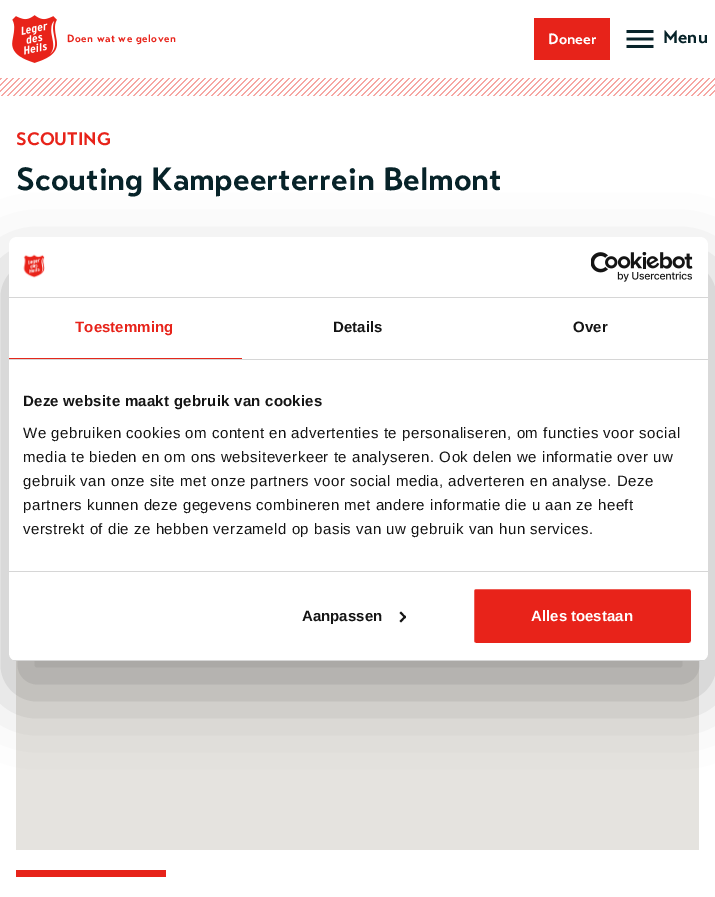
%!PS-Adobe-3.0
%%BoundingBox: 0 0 715 897
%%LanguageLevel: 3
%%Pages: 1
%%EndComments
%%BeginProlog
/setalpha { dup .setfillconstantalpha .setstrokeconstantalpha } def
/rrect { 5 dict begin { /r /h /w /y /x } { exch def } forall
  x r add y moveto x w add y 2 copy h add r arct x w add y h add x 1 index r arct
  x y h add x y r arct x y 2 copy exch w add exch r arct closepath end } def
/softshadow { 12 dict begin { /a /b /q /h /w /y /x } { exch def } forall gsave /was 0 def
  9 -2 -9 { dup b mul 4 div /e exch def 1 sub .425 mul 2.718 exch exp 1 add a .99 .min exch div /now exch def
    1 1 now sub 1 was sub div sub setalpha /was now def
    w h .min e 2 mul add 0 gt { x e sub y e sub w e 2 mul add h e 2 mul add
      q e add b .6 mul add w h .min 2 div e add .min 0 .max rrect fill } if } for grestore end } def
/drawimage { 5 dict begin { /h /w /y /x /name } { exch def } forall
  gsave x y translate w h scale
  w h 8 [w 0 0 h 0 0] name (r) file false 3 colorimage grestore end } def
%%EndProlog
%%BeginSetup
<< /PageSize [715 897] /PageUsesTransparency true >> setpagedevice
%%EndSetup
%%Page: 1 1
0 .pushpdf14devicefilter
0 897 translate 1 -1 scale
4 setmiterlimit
1 setgray
0 0 715 897 rectfill
(images/1.raw) 12 15 45 48 drawimage
0.906 0.137 0.102 setrgbcolor
534 18 76 42 rectfill
(images/2.raw) 626 30 28 18 drawimage
(images/3.raw) 0 78 715 18 drawimage
0.898 0.89 0.875 setrgbcolor
16 660 683 190 rectfill
0.906 0.137 0.102 setrgbcolor
16 870 150 7 rectfill
0 setgray
9 269 699 424 8 34 0.3 softshadow
1 setgray
9 237 699 424 8 rrect fill
0.839 setgray
9 297 699 1 rectfill
(images/4.raw) 23 254 22 24 drawimage
(images/5.raw) 591 252 102 30 drawimage
9 359 699 1 rectfill
0.894 0.157 0.11 setrgbcolor
9 358 233 1 rectfill
0.839 setgray
9 571 699 1 rectfill
gsave
9 237 699 424 8 rrect clip newpath
9 660 699 1 rectfill
grestore
0.078 setgray
newpath 401 611.5 moveto 406 617 lineto 405 618.5 lineto 399.5 613 lineto closepath fill
newpath 405 615.5 moveto 406 617 lineto 401 622.5 lineto 399.5 621 lineto closepath fill
0.91 0.137 0.102 setrgbcolor
473 588 219 56 3 rrect gsave fill grestore
1 setgray
2 setlinewidth
stroke
/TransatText-Bold [10.5 0 0 -10.5 0 0] selectfont
0.906 0.137 0.102 setrgbcolor
67 42 moveto 0.5 0 (Doen wat we geloven) ashow
/TransatText-Bold [15 0 0 -15 0 0] selectfont
1 setgray
548 44 moveto (Doneer) show
/TransatText-Bold [18 0 0 -18 0 0] selectfont
0.027 0.137 0.161 setrgbcolor
663 43 moveto (Menu) show
0.906 0.137 0.102 setrgbcolor
16 145 moveto (SCOUTING) show
/TransatText-Bold [32 0 0 -32 0 0] selectfont
0.027 0.137 0.161 setrgbcolor
16 190 moveto (Scouting Kampeerterrein Belmont) show
/LiberationSans-Bold [15 0 0 -15 0 0] selectfont
0.906 0.137 0.102 setrgbcolor
75 332 moveto 0.1 0 (Toestemming) ashow
0.078 setgray
333 332 moveto 0.1 0 (Details) ashow
573 332 moveto 0.1 0 (Over) ashow
23 406 moveto 0.25 0 (Deze website maakt gebruik van cookies) ashow
/LiberationSans-Regular [15 0 0 -15 0 0] selectfont
23 438 moveto 0.5 0 (We gebruiken cookies om content en advertenties te personaliseren, om functies voor social) ashow
23 462 moveto 0.5 0 (media te bieden en om ons websiteverkeer te analyseren. Ook delen we informatie over uw) ashow
23 486 moveto 0.5 0 (gebruik van onze site met onze partners voor social media, adverteren en analyse. Deze) ashow
23 510 moveto 0.5 0 (partners kunnen deze gegevens combineren met andere informatie die u aan ze heeft) ashow
23 534 moveto 0.5 0 (verstrekt of die ze hebben verzameld op basis van uw gebruik van hun services.) ashow
/LiberationSans-Bold [15 0 0 -15 0 0] selectfont
302 621 moveto (Aanpassen) show
1 setgray
531 621 moveto (Alles toestaan) show
.poppdf14devicefilter showpage
%%EOF
